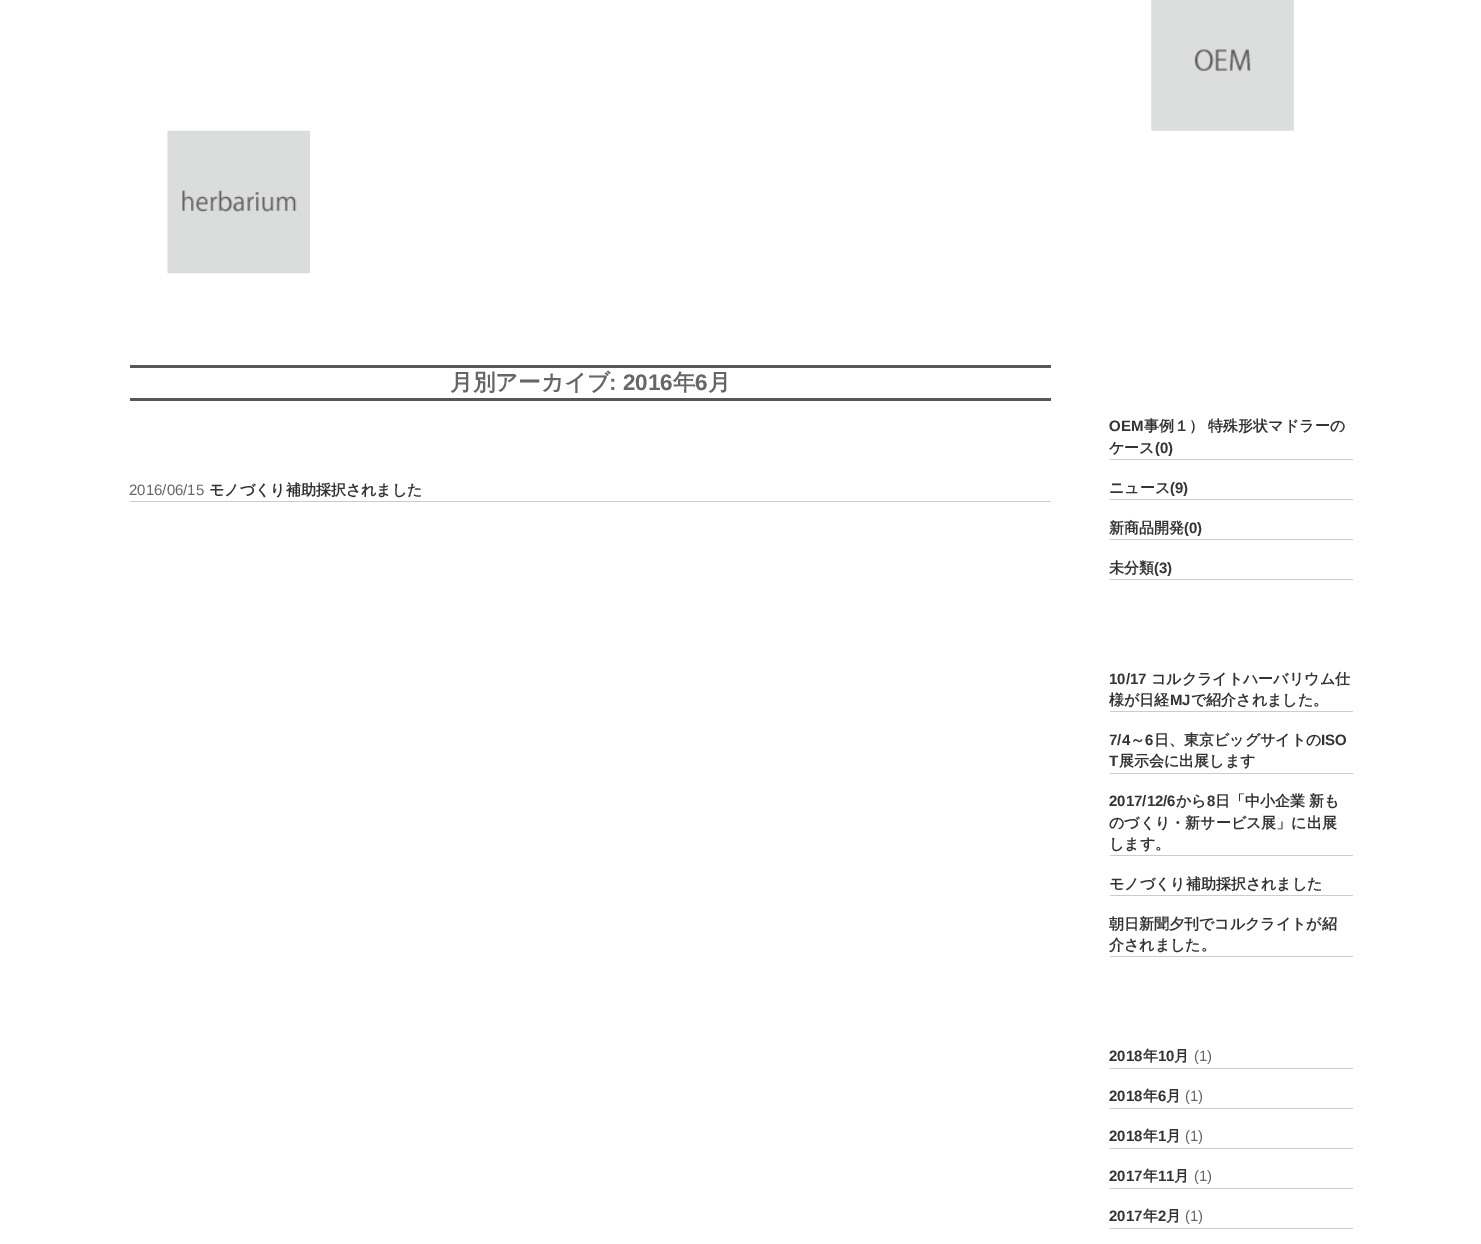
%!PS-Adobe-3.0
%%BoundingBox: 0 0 1481 1244
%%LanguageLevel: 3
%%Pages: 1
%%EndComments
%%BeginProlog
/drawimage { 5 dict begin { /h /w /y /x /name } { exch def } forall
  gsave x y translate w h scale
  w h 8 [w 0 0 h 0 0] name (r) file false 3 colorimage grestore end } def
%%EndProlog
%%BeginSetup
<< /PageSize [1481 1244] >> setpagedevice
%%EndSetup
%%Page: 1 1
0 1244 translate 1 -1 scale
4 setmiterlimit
1 setgray
0 0 1481 1244 rectfill
(images/1.raw) 1151 0 143 131 drawimage
(images/2.raw) 167 130 143 144 drawimage
0.349 0.337 0.337 setrgbcolor
130 365 921 3 rectfill
130 398 921 3 rectfill
0.8 setgray
130 501 921 1 rectfill
1110 459 243 1 rectfill
1110 499 243 1 rectfill
1110 539 243 1 rectfill
1110 579 243 1 rectfill
1110 711 243 1 rectfill
1110 773 243 1 rectfill
1110 855 243 1 rectfill
1110 895 243 1 rectfill
1110 956 243 1 rectfill
1110 1068 243 1 rectfill
1110 1108 243 1 rectfill
1110 1148 243 1 rectfill
1110 1188 243 1 rectfill
1110 1228 243 1 rectfill
/WenQuanYiZenHei-Bold [22.5 0 0 -22.5 0 0] selectfont
0.4 setgray
450 390 moveto (月別アーカイブ) show
/LiberationSans-Bold [22.5 0 0 -22.5 0 0] selectfont
609 390 moveto (: 2016) show
/WenQuanYiZenHei-Bold [22.5 0 0 -22.5 0 0] selectfont
673 390 moveto (年) show
/LiberationSans-Bold [22.5 0 0 -22.5 0 0] selectfont
695 390 moveto (6) show
/WenQuanYiZenHei-Bold [22.5 0 0 -22.5 0 0] selectfont
708 390 moveto (月) show
/LiberationSans-Regular [15 0 0 -15 0 0] selectfont
129 495 moveto (2016/06/15) show
/WenQuanYiZenHei-Bold [15 0 0 -15 0 0] selectfont
0.2 setgray
209 495 moveto (モノづくり補助採択されました) show
/LiberationSans-Bold [15 0 0 -15 0 0] selectfont
1109 431 moveto (OEM) show
/WenQuanYiZenHei-Bold [15 0 0 -15 0 0] selectfont
1144 431 moveto (事例１） 特殊形状マドラーの) show
1109 453 moveto (ケース) show
/LiberationSans-Bold [15 0 0 -15 0 0] selectfont
1155 453 moveto (\(0\)) show
/WenQuanYiZenHei-Bold [15 0 0 -15 0 0] selectfont
1109 493 moveto (ニュース) show
/LiberationSans-Bold [15 0 0 -15 0 0] selectfont
1170 493 moveto (\(9\)) show
/WenQuanYiZenHei-Bold [15 0 0 -15 0 0] selectfont
1109 533 moveto (新商品開発) show
/LiberationSans-Bold [15 0 0 -15 0 0] selectfont
1184 533 moveto (\(0\)) show
/WenQuanYiZenHei-Bold [15 0 0 -15 0 0] selectfont
1109 573 moveto (未分類) show
/LiberationSans-Bold [15 0 0 -15 0 0] selectfont
1154 573 moveto (\(3\)) show
1109 684 moveto (10/17) show
/WenQuanYiZenHei-Bold [15 0 0 -15 0 0] selectfont
1151 684 moveto (コルクライトハーバリウム仕) show
1109 705 moveto (様が日経) show
/LiberationSans-Bold [15 0 0 -15 0 0] selectfont
1170 705 moveto (MJ) show
/WenQuanYiZenHei-Bold [15 0 0 -15 0 0] selectfont
1191 705 moveto (で紹介されました。) show
/LiberationSans-Bold [15 0 0 -15 0 0] selectfont
1109 745 moveto (7/4) show
/WenQuanYiZenHei-Bold [15 0 0 -15 0 0] selectfont
1130 745 moveto (～) show
/LiberationSans-Bold [15 0 0 -15 0 0] selectfont
1145 745 moveto (6) show
/WenQuanYiZenHei-Bold [15 0 0 -15 0 0] selectfont
1154 745 moveto (日、東京ビッグサイトの) show
/LiberationSans-Bold [15 0 0 -15 0 0] selectfont
1321 745 moveto (ISO) show
1109 766 moveto (T) show
/WenQuanYiZenHei-Bold [15 0 0 -15 0 0] selectfont
1119 766 moveto (展示会に出展します) show
/LiberationSans-Bold [15 0 0 -15 0 0] selectfont
1109 806 moveto (2017/12/6) show
/WenQuanYiZenHei-Bold [15 0 0 -15 0 0] selectfont
1176 806 moveto (から) show
/LiberationSans-Bold [15 0 0 -15 0 0] selectfont
1207 806 moveto (8) show
/WenQuanYiZenHei-Bold [15 0 0 -15 0 0] selectfont
1215 806 moveto (日「中小企業 新も) show
1109 828 moveto (のづくり・新サービス展」に出展) show
1109 849 moveto (します。) show
1109 889 moveto (モノづくり補助採択されました) show
1109 929 moveto (朝日新聞夕刊でコルクライトが紹) show
1109 950 moveto (介されました。) show
/LiberationSans-Bold [15 0 0 -15 0 0] selectfont
1109 1061 moveto (2018) show
/WenQuanYiZenHei-Bold [15 0 0 -15 0 0] selectfont
1143 1061 moveto (年) show
/LiberationSans-Bold [15 0 0 -15 0 0] selectfont
1158 1061 moveto (10) show
/WenQuanYiZenHei-Bold [15 0 0 -15 0 0] selectfont
1174 1061 moveto (月) show
/LiberationSans-Regular [15 0 0 -15 0 0] selectfont
0.4 setgray
1194 1061 moveto (\(1\)) show
/LiberationSans-Bold [15 0 0 -15 0 0] selectfont
0.2 setgray
1109 1101 moveto (2018) show
/WenQuanYiZenHei-Bold [15 0 0 -15 0 0] selectfont
1143 1101 moveto (年) show
/LiberationSans-Bold [15 0 0 -15 0 0] selectfont
1158 1101 moveto (6) show
/WenQuanYiZenHei-Bold [15 0 0 -15 0 0] selectfont
1166 1101 moveto (月) show
/LiberationSans-Regular [15 0 0 -15 0 0] selectfont
0.4 setgray
1185 1101 moveto (\(1\)) show
/LiberationSans-Bold [15 0 0 -15 0 0] selectfont
0.2 setgray
1109 1141 moveto (2018) show
/WenQuanYiZenHei-Bold [15 0 0 -15 0 0] selectfont
1143 1141 moveto (年) show
/LiberationSans-Bold [15 0 0 -15 0 0] selectfont
1158 1141 moveto (1) show
/WenQuanYiZenHei-Bold [15 0 0 -15 0 0] selectfont
1166 1141 moveto (月) show
/LiberationSans-Regular [15 0 0 -15 0 0] selectfont
0.4 setgray
1185 1141 moveto (\(1\)) show
/LiberationSans-Bold [15 0 0 -15 0 0] selectfont
0.2 setgray
1109 1181 moveto (2017) show
/WenQuanYiZenHei-Bold [15 0 0 -15 0 0] selectfont
1143 1181 moveto (年) show
/LiberationSans-Bold [15 0 0 -15 0 0] selectfont
1158 1181 moveto (11) show
/WenQuanYiZenHei-Bold [15 0 0 -15 0 0] selectfont
1174 1181 moveto (月) show
/LiberationSans-Regular [15 0 0 -15 0 0] selectfont
0.4 setgray
1194 1181 moveto (\(1\)) show
/LiberationSans-Bold [15 0 0 -15 0 0] selectfont
0.2 setgray
1109 1221 moveto (2017) show
/WenQuanYiZenHei-Bold [15 0 0 -15 0 0] selectfont
1143 1221 moveto (年) show
/LiberationSans-Bold [15 0 0 -15 0 0] selectfont
1158 1221 moveto (2) show
/WenQuanYiZenHei-Bold [15 0 0 -15 0 0] selectfont
1166 1221 moveto (月) show
/LiberationSans-Regular [15 0 0 -15 0 0] selectfont
0.4 setgray
1185 1221 moveto (\(1\)) show
showpage
%%EOF
